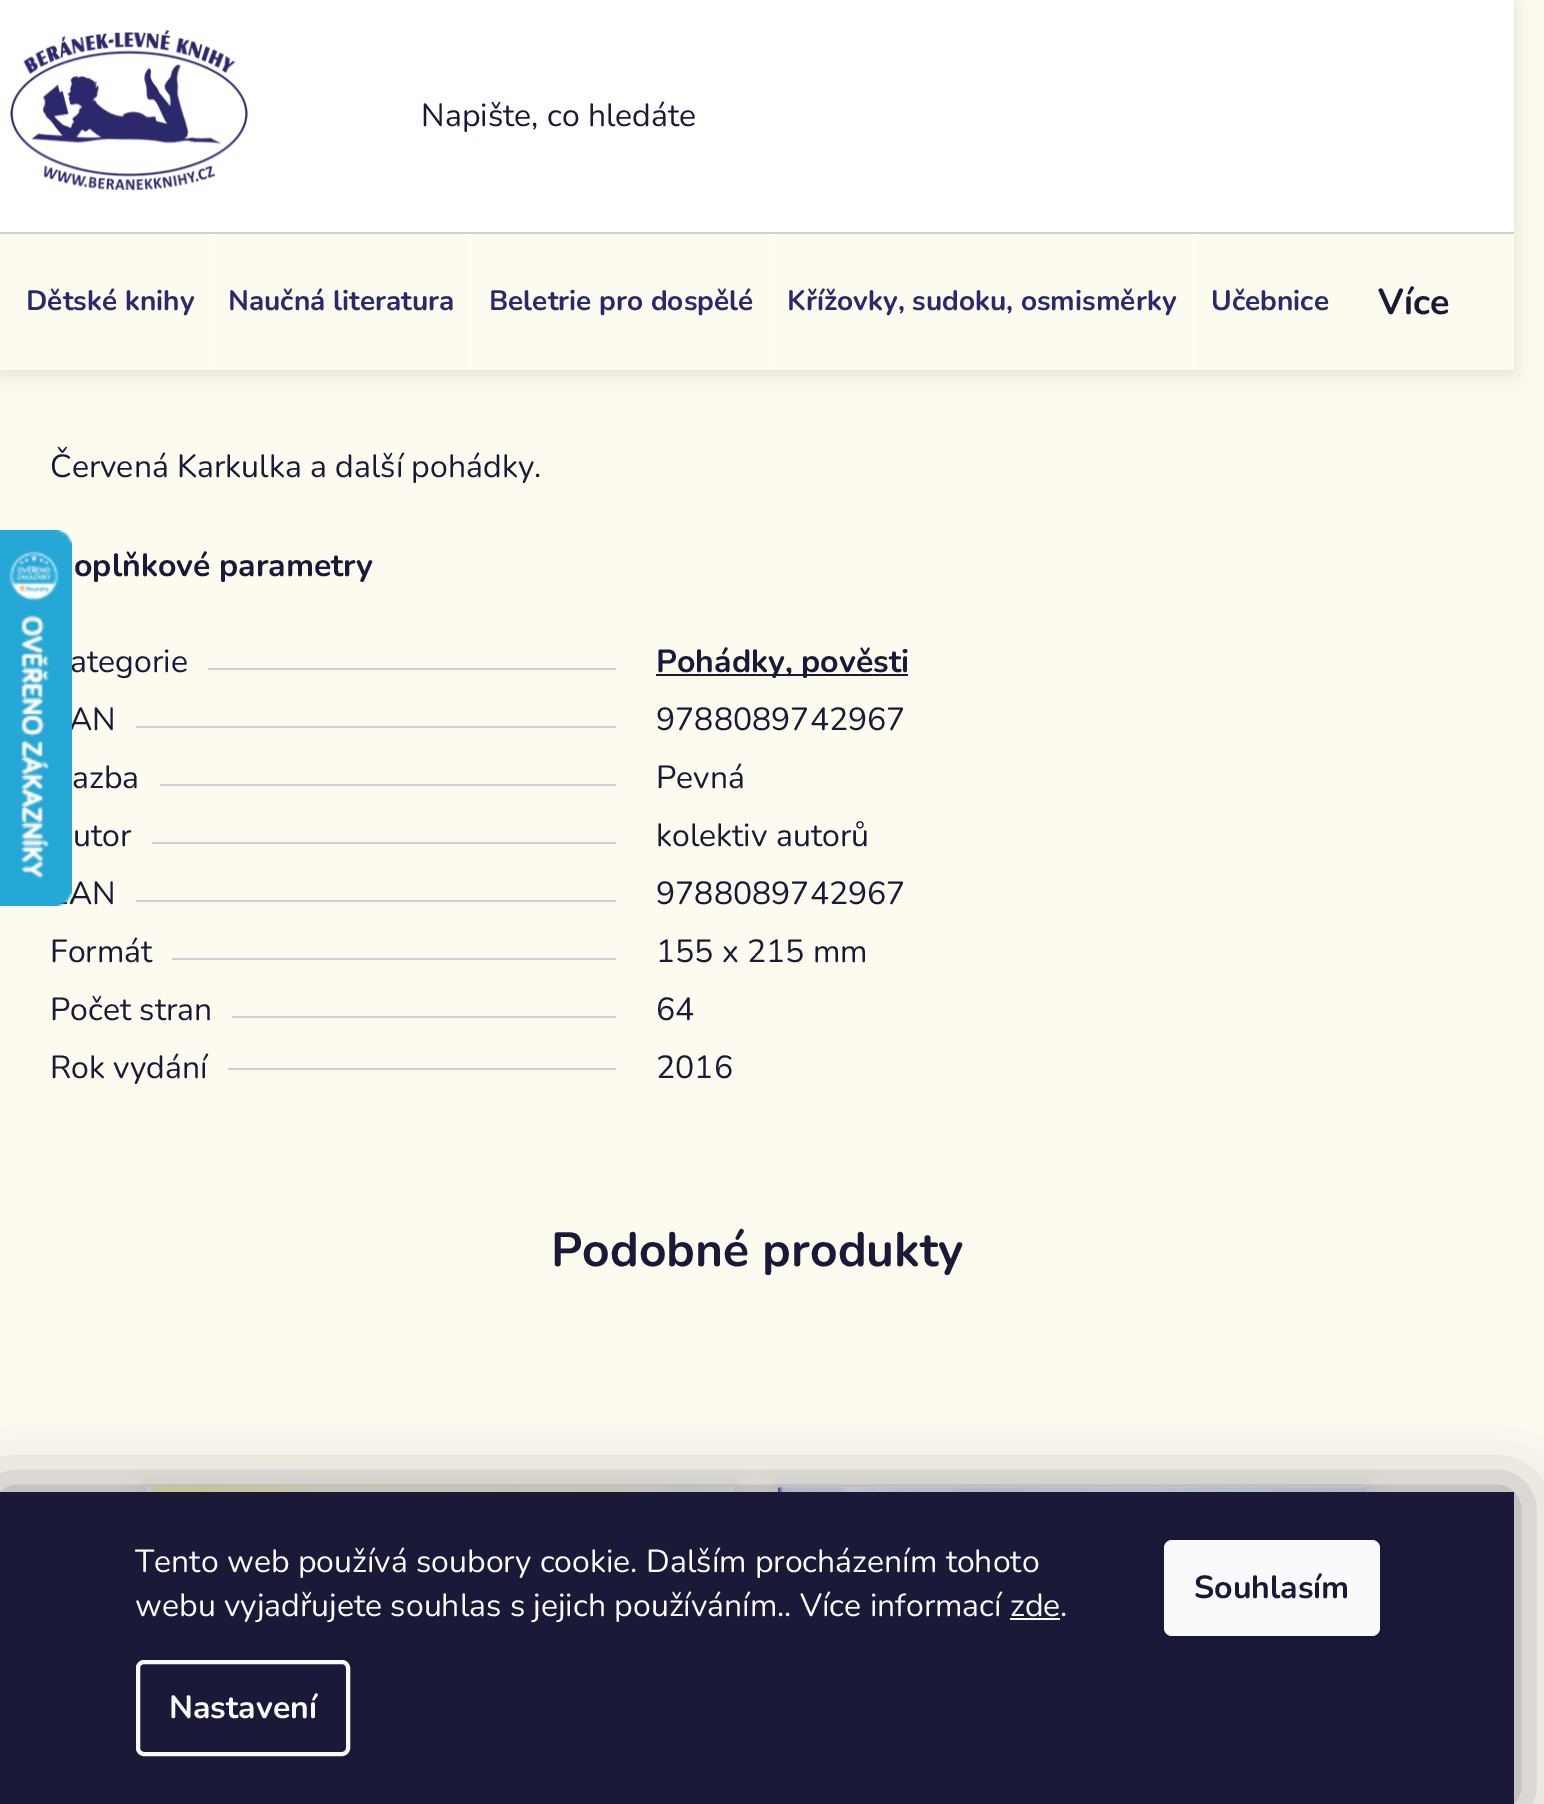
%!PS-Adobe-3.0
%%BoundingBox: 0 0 1544 1804
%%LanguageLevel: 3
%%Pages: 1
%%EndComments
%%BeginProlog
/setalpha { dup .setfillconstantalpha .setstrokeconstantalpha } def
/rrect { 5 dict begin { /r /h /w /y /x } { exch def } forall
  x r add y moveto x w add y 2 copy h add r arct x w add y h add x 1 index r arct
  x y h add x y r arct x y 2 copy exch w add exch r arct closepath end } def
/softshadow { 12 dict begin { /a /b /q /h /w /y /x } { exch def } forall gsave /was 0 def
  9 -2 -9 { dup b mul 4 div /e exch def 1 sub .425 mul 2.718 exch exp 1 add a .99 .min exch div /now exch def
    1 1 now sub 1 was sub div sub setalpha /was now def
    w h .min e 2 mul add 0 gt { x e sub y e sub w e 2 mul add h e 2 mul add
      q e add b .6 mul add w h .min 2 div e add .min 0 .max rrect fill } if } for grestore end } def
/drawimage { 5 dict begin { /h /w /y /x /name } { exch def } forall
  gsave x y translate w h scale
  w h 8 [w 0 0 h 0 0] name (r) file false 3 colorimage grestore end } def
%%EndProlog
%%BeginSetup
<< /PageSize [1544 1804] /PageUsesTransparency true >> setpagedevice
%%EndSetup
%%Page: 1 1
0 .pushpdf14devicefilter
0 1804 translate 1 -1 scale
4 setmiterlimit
0.992 0.98 0.941 setrgbcolor
0 0 1544 1804 rectfill
0 setgray
0 4 1514 370 0 10 0.1 softshadow
1 setgray
0 0 1514 232 rectfill
(images/1.raw) 10 30 238 160 drawimage
0.992 0.98 0.941 setrgbcolor
0 234 1514 136 rectfill
0.812 setgray
0 232 1514 2 rectfill
0.996 0.988 0.961 setrgbcolor
210 234 2 136 rectfill
470 234 2 136 rectfill
770 234 2 136 rectfill
1192 234 2 136 rectfill
0.812 setgray
208 668 408 2 rectfill
0.102 0.098 0.216 setrgbcolor
656 674 252 2 rectfill
0.812 setgray
136 726 480 2 rectfill
160 784 456 2 rectfill
152 842 464 2 rectfill
136 900 480 2 rectfill
172 958 444 2 rectfill
232 1016 384 2 rectfill
228 1068 388 2 rectfill
0 setgray
146 1486 588 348 0 10 0.08 softshadow
(images/2.raw) 146 1486 588 6 drawimage
778 1486 588 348 0 10 0.08 softshadow
(images/3.raw) 778 1486 588 6 drawimage
0.106 0.098 0.224 setrgbcolor
0 1492 1514 312 0 30 0.5 softshadow
0.102 0.098 0.216 setrgbcolor
0 1492 1514 312 rectfill
0.973 0.98 0.984 setrgbcolor
1010 1618 50 2 rectfill
4 setlinewidth
138 1662 210 92 6 rrect stroke
1164 1540 216 96 8 rrect fill
/Nunito-Regular [32 0 0 -32 0 0] selectfont
0.102 0.098 0.216 setrgbcolor
421 126 moveto (Napište, co hledáte) show
/Nunito-Bold [28 0 0 -28 0 0] selectfont
0.169 0.161 0.42 setrgbcolor
26 310 moveto (Dětské knihy) show
228 310 moveto (Naučná literatura) show
489 310 moveto (Beletrie pro dospělé) show
787 310 moveto (Křížovky, sudoku, osmisměrky) show
1211 310 moveto (Učebnice) show
/Nunito-Bold [36 0 0 -36 0 0] selectfont
0.102 0.098 0.216 setrgbcolor
1378 314 moveto (Více) show
/Nunito-Regular [32 0 0 -32 0 0] selectfont
50 477 moveto (Červená Karkulka a další pohádky.) show
/Nunito-Bold [32 0 0 -32 0 0] selectfont
74 576 moveto (oplňkové parametry) show
/Nunito-Regular [32 0 0 -32 0 0] selectfont
70 672 moveto (ategorie) show
/Nunito-Bold [32 0 0 -32 0 0] selectfont
656 672 moveto (Pohádky, pověsti) show
/Nunito-Regular [32 0 0 -32 0 0] selectfont
69 730 moveto (AN) show
656 730 moveto (9788089742967) show
72 788 moveto (azba) show
656 788 moveto (Pevná) show
73 846 moveto (utor) show
656 846 moveto (kolektiv autorů) show
69 904 moveto (AN) show
656 904 moveto (9788089742967) show
50 962 moveto (Formát) show
656 962 moveto (155 x 215 mm) show
50 1020 moveto (Počet stran) show
656 1020 moveto (64) show
50 1078 moveto (Rok vydání) show
656 1078 moveto (2016) show
/Nunito-Bold [48 0 0 -48 0 0] selectfont
551 1266 moveto (Podobné produkty) show
(images/4.raw) 0 530 72 376 drawimage
/Nunito-Regular [32 0 0 -32 0 0] selectfont
0.973 0.98 0.984 setrgbcolor
135 1572 moveto (Tento web používá soubory cookie. Dalším procházením tohoto) show
135 1616 moveto (webu vyjadřujete souhlas s jejich používáním.. Více informací zde.) show
/Nunito-Bold [32 0 0 -32 0 0] selectfont
169 1718 moveto (Nastavení) show
0.102 0.098 0.216 setrgbcolor
1194 1598 moveto (Souhlasím) show
.poppdf14devicefilter showpage
%%EOF
